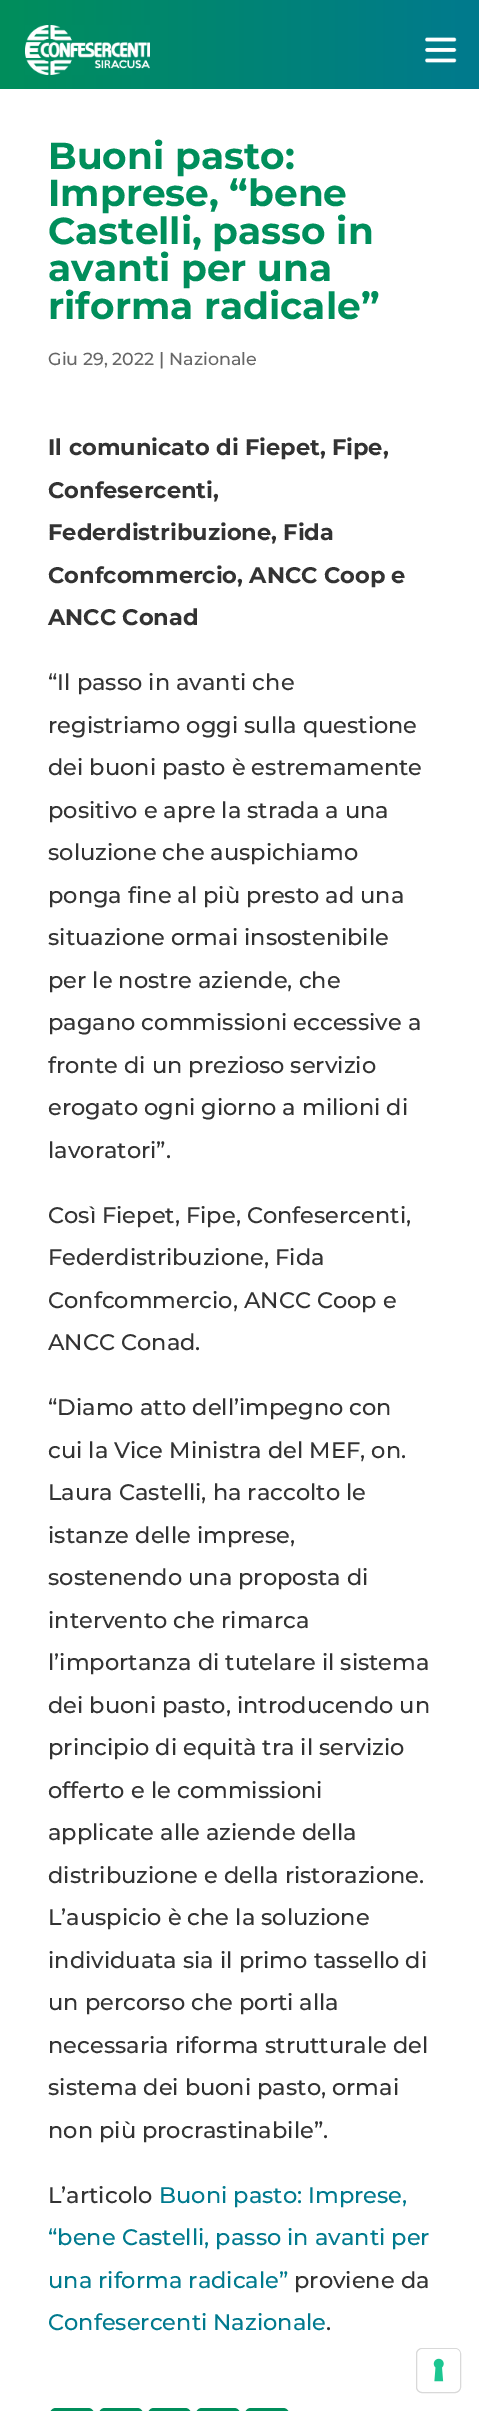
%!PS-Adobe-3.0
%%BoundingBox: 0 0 479 2411
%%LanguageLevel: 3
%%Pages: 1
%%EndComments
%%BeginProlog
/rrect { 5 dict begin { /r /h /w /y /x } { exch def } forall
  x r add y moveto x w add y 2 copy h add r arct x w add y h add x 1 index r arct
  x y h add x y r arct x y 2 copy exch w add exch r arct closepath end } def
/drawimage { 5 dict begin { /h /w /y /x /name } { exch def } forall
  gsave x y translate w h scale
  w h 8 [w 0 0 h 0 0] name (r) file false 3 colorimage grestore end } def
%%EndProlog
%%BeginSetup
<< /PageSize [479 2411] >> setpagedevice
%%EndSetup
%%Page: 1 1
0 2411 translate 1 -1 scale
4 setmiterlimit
1 setgray
0 0 479 2411 rectfill
gsave newpath 0 0 moveto 479 0 lineto 479 89 lineto 0 89 lineto closepath clip newpath
<< /ShadingType 2 /ColorSpace /DeviceRGB /Coords [0 44 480 44] /Extend [true true] /Function << /FunctionType 2 /Domain [0 1] /C0 [0 0.557 0.357] /C1 [0 0.478 0.557] /N 1 >> >> shfill grestore
(images/1.raw) 25 25 125 50 drawimage
(images/2.raw) 425 37 32 26 drawimage
0 0.557 0.357 setrgbcolor
50 2408 44 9 6 rrect fill
99 2408 44 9 6 rrect fill
148 2408 43 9 6 rrect fill
196 2408 44 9 6 rrect fill
245 2408 44 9 6 rrect fill
0.851 setgray
416.5 2348.5 44 44 5.5 rrect stroke
1 setgray
418 2349 42 42 5 rrect fill
(images/3.raw) 433 2358 11 24 drawimage
/Montserrat-Bold [37.5 0 0 -37.5 0 0] selectfont
0 0.557 0.357 setrgbcolor
48 169 moveto (Buoni pasto:) show
48 206 moveto (Imprese, “bene) show
48 244 moveto (Castelli, passo in) show
48 281 moveto (avanti per una) show
48 319 moveto (riforma radicale”) show
/Montserrat-Medium [17.5 0 0 -17.5 0 0] selectfont
0.4 setgray
48 365 moveto (Giu 29, 2022 | Nazionale) show
/Montserrat-Bold [22.5 0 0 -22.5 0 0] selectfont
0.2 setgray
48 455 moveto (Il comunicato di Fiepet, Fipe,) show
48 498 moveto (Confesercenti,) show
48 540 moveto (Federdistribuzione, Fida) show
48 583 moveto (Confcommercio, ANCC Coop e) show
48 625 moveto (ANCC Conad) show
/Montserrat-Medium [22.5 0 0 -22.5 0 0] selectfont
48 690 moveto (“Il passo in avanti che) show
48 733 moveto (registriamo oggi sulla questione) show
48 775 moveto (dei buoni pasto è estremamente) show
48 818 moveto (positivo e apre la strada a una) show
48 860 moveto (soluzione che auspichiamo) show
48 903 moveto (ponga fine al più presto ad una) show
48 945 moveto (situazione ormai insostenibile) show
48 988 moveto (per le nostre aziende, che) show
48 1030 moveto (pagano commissioni eccessive a) show
48 1073 moveto (fronte di un prezioso servizio) show
48 1115 moveto (erogato ogni giorno a milioni di) show
48 1158 moveto (lavoratori”.) show
48 1223 moveto (Così Fiepet, Fipe, Confesercenti,) show
48 1265 moveto (Federdistribuzione, Fida) show
48 1308 moveto (Confcommercio, ANCC Coop e) show
48 1350 moveto (ANCC Conad.) show
48 1415 moveto (“Diamo atto dell’impegno con) show
48 1458 moveto (cui la Vice Ministra del MEF, on.) show
48 1500 moveto (Laura Castelli, ha raccolto le) show
48 1543 moveto (istanze delle imprese,) show
48 1585 moveto (sostenendo una proposta di) show
48 1628 moveto (intervento che rimarca) show
48 1670 moveto (l’importanza di tutelare il sistema) show
48 1713 moveto (dei buoni pasto, introducendo un) show
48 1755 moveto (principio di equità tra il servizio) show
48 1798 moveto (offerto e le commissioni) show
48 1840 moveto (applicate alle aziende della) show
48 1883 moveto (distribuzione e della ristorazione.) show
48 1925 moveto (L’auspicio è che la soluzione) show
48 1968 moveto (individuata sia il primo tassello di) show
48 2010 moveto (un percorso che porti alla) show
48 2053 moveto (necessaria riforma strutturale del) show
48 2095 moveto (sistema dei buoni pasto, ormai) show
48 2138 moveto (non più procrastinabile”.) show
48 2203 moveto (L’articolo) show
0 0.478 0.557 setrgbcolor
159 2203 moveto (Buoni pasto: Imprese,) show
48 2245 moveto (“bene Castelli, passo in avanti per) show
48 2288 moveto (una riforma radicale”) show
0.2 setgray
294 2288 moveto (proviene da) show
0 0.478 0.557 setrgbcolor
48 2330 moveto (Confesercenti Nazionale) show
0.2 setgray
326 2330 moveto (.) show
showpage
%%EOF
